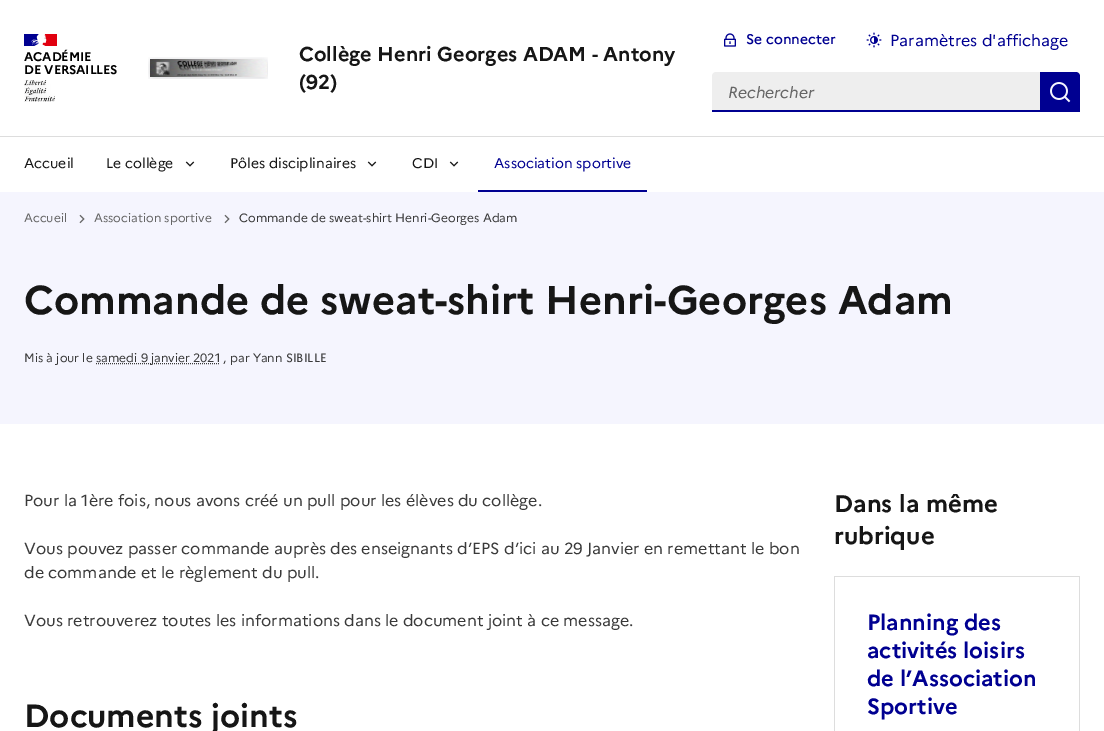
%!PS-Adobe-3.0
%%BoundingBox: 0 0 1104 731
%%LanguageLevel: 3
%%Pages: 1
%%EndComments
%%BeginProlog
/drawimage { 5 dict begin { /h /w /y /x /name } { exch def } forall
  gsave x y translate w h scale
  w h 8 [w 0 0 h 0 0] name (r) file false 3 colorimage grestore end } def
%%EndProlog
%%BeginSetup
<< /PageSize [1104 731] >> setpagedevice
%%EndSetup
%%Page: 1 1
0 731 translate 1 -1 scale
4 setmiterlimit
1 setgray
0 0 1104 731 rectfill
0 0 0.569 setrgbcolor
24 34 16 12 rectfill
0.882 0 0.059 setrgbcolor
42 34 15 12 rectfill
(images/1.raw) 31 34 16 12 drawimage
(images/2.raw) 24 80 31 22 drawimage
(images/3.raw) 148 57 120 22 drawimage
(images/4.raw) 724 33 12 14 drawimage
(images/5.raw) 866 32 16 16 drawimage
0.933 setgray
newpath 716 72 moveto 1040 72 lineto 1040 112 lineto 712 112 lineto 712 76 lineto 712 74 714 72 716 72 curveto closepath fill
0 0 0.569 setrgbcolor
712 110 328 2 rectfill
newpath 1040 72 moveto 1076 72 lineto 1078 72 1080 74 1080 76 curveto 1080 112 lineto 1040 112 lineto closepath fill
(images/6.raw) 1050 82 21 21 drawimage
0.867 setgray
0 136 1104 1 rectfill
(images/7.raw) 185 161 10 6 drawimage
(images/7.raw) 367 161 10 6 drawimage
(images/7.raw) 449 161 10 6 drawimage
0 0 0.569 setrgbcolor
478 190 169 2 rectfill
0.961 0.961 0.996 setrgbcolor
0 192 1104 232 rectfill
(images/8.raw) 79 214 6 10 drawimage
(images/8.raw) 224 214 6 10 drawimage
0.227 setgray
[1 1] 0 setdash
newpath 96 363.5 moveto 220 363.5 lineto stroke
0.867 setgray
834 576 246 1 rectfill
1079 576 1 155 rectfill
834 576 1 155 rectfill
/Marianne-Bold [12.5 0 0 -12.5 0 0] selectfont
0 setgray
24 61 moveto -0.1 0 (ACADÉMIE) ashow
24 74 moveto -0.1 0 (DE VERSAILLES) ashow
/Marianne-Bold [20 0 0 -20 0 0] selectfont
0.086 setgray
299 61 moveto (Collège Henri Georges ADAM - Antony) show
299 89 moveto (\(92\)) show
/Marianne-Medium [14 0 0 -14 0 0] selectfont
0 0 0.569 setrgbcolor
746 44 moveto (Se connecter) show
/Marianne-Regular [16 0 0 -16 0 0] selectfont
890 46 moveto (Paramètres d'affichage) show
/Marianne-Italic [16 0 0 -16 0 0] selectfont
0.4 setgray
728 98 moveto (Rechercher) show
/Marianne-Regular [14 0 0 -14 0 0] selectfont
0.086 setgray
24 168 moveto (Accueil) show
106 168 moveto (Le collège) show
230 168 moveto (Pôles disciplinaires) show
412 168 moveto (CDI) show
0 0 0.569 setrgbcolor
494 168 moveto (Association sportive) show
/Marianne-Regular [12 0 0 -12 0 0] selectfont
0.4 setgray
24 222 moveto (Accueil) show
94 222 moveto (Association sportive) show
0.227 setgray
239 222 moveto (Commande de sweat-shirt Henri-Georges Adam) show
/Marianne-Bold [40 0 0 -40 0 0] selectfont
0.086 setgray
24 314 moveto (Commande de sweat-shirt Henri-Georges Adam) show
/Marianne-Regular [12 0 0 -12 0 0] selectfont
0.227 setgray
24 362 moveto (Mis à jour le) show
96 362 moveto (samedi 9 janvier 2021 , par Yann SIBILLE) show
/Marianne-Regular [16 0 0 -16 0 0] selectfont
24 506 moveto (Pour la 1ère fois, nous avons créé un pull pour les élèves du collège.) show
24 554 moveto (Vous pouvez passer commande auprès des enseignants d’EPS d’ici au 29 Janvier en remettant le bon) show
24 578 moveto (de commande et le règlement du pull.) show
24 626 moveto (Vous retrouverez toutes les informations dans le document joint à ce message.) show
/Marianne-Bold [32 0 0 -32 0 0] selectfont
0.086 setgray
24 727 moveto (Documents joints) show
/Marianne-Bold [24 0 0 -24 0 0] selectfont
834 512 moveto (Dans la même) show
834 544 moveto (rubrique) show
/Marianne-Bold [22 0 0 -22 0 0] selectfont
0 0 0.569 setrgbcolor
867 630 moveto (Planning des) show
867 658 moveto (activités loisirs) show
867 686 moveto (de l’Association) show
867 714 moveto (Sportive) show
showpage
%%EOF
